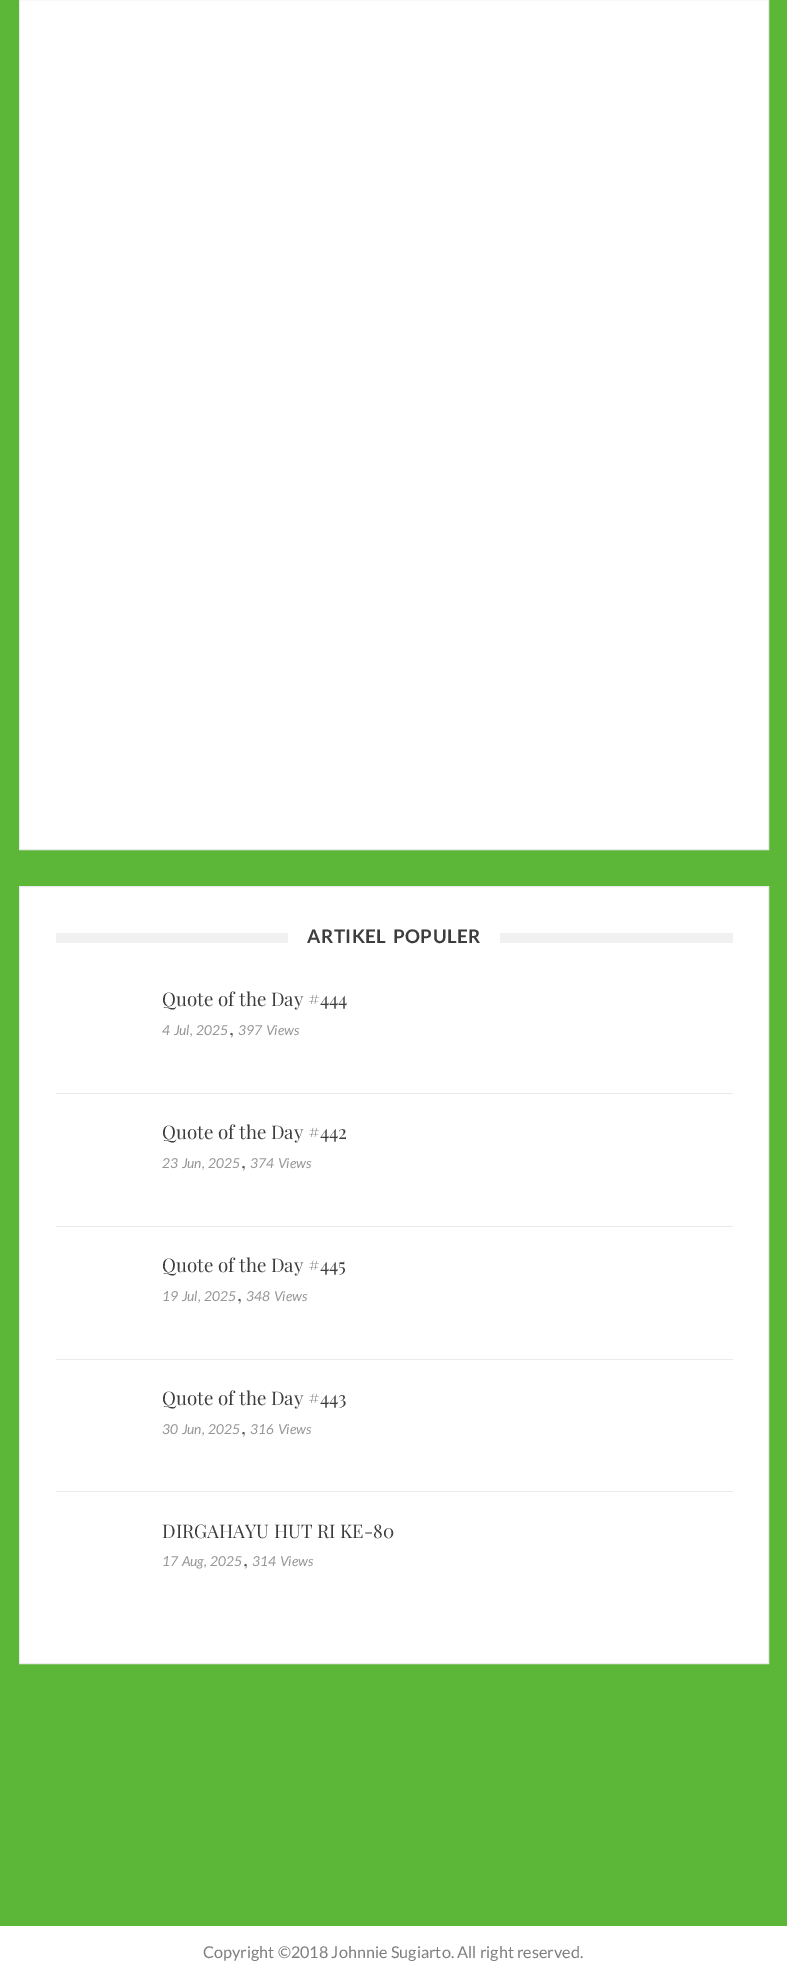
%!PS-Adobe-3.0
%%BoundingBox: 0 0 787 1978
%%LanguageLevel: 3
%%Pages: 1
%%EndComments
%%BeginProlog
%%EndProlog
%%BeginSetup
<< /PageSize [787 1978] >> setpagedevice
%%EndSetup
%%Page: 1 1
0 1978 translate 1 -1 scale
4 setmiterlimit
0.361 0.718 0.22 setrgbcolor
0 0 787 1978 rectfill
1 setgray
newpath 19.5 -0.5 moveto 768.5 -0.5 lineto 768.5 849.5 lineto 19.5 849.5 lineto closepath gsave fill grestore
0.922 setgray
stroke
1 setgray
newpath 19.5 886.5 moveto 768.5 886.5 lineto 768.5 1663.5 lineto 19.5 1663.5 lineto closepath gsave fill grestore
0.922 setgray
stroke
0.945 setgray
56 933 677 10 rectfill
1 setgray
288 933 212 10 rectfill
0.922 setgray
56 1093 677 1 rectfill
56 1226 677 1 rectfill
56 1359 677 1 rectfill
56 1491 677 1 rectfill
1 setgray
0 1926 787 52 rectfill
/Lato-Bold [18.75 0 0 -18.75 0 0] selectfont
0.239 setgray
307 943 moveto 2 0 32 0.5 0 (ARTIKEL POPULER) awidthshow
/PlayfairDisplay-Regular [18.75 0 0 -18.75 0 0] selectfont
162 1006 moveto (Quote of the Day #444) show
/Lato-Italic [13.75 0 0 -13.75 0 0] selectfont
0.588 setgray
162 1035 moveto 1 0 32 (4 Jul, 2025) widthshow
/PlayfairDisplay-Regular [19 0 0 -19 0 0] selectfont
0.353 setgray
229 1035 moveto (,) show
/Lato-Italic [13.75 0 0 -13.75 0 0] selectfont
0.588 setgray
238 1035 moveto 1 0 32 (397 Views) widthshow
/PlayfairDisplay-Regular [18.75 0 0 -18.75 0 0] selectfont
0.239 setgray
162 1139 moveto (Quote of the Day #442) show
/Lato-Italic [13.75 0 0 -13.75 0 0] selectfont
0.588 setgray
162 1168 moveto 1 0 32 (23 Jun, 2025) widthshow
/PlayfairDisplay-Regular [19 0 0 -19 0 0] selectfont
0.353 setgray
241 1168 moveto (,) show
/Lato-Italic [13.75 0 0 -13.75 0 0] selectfont
0.588 setgray
250 1168 moveto 1 0 32 (374 Views) widthshow
/PlayfairDisplay-Regular [18.75 0 0 -18.75 0 0] selectfont
0.239 setgray
162 1272 moveto (Quote of the Day #445) show
/Lato-Italic [13.75 0 0 -13.75 0 0] selectfont
0.588 setgray
162 1301 moveto 1 0 32 (19 Jul, 2025) widthshow
/PlayfairDisplay-Regular [19 0 0 -19 0 0] selectfont
0.353 setgray
237 1301 moveto (,) show
/Lato-Italic [13.75 0 0 -13.75 0 0] selectfont
0.588 setgray
246 1301 moveto 1 0 32 (348 Views) widthshow
/PlayfairDisplay-Regular [18.75 0 0 -18.75 0 0] selectfont
0.239 setgray
162 1405 moveto (Quote of the Day #443) show
/Lato-Italic [13.75 0 0 -13.75 0 0] selectfont
0.588 setgray
162 1434 moveto 1 0 32 (30 Jun, 2025) widthshow
/PlayfairDisplay-Regular [19 0 0 -19 0 0] selectfont
0.353 setgray
241 1434 moveto (,) show
/Lato-Italic [13.75 0 0 -13.75 0 0] selectfont
0.588 setgray
250 1434 moveto 1 0 32 (316 Views) widthshow
/PlayfairDisplay-Regular [18.75 0 0 -18.75 0 0] selectfont
0.239 setgray
162 1538 moveto (DIRGAHAYU HUT RI KE-80) show
/Lato-Italic [13.75 0 0 -13.75 0 0] selectfont
0.588 setgray
162 1566 moveto 1 0 32 (17 Aug, 2025) widthshow
/PlayfairDisplay-Regular [19 0 0 -19 0 0] selectfont
0.353 setgray
243 1566 moveto (,) show
/Lato-Italic [13.75 0 0 -13.75 0 0] selectfont
0.588 setgray
252 1566 moveto 1 0 32 (314 Views) widthshow
/Lato-Regular [16.25 0 0 -16.25 0 0] selectfont
0.494 setgray
203 1958 moveto (Copyright ©2018 Johnnie Sugiarto. All right reserved.) show
showpage
%%EOF
